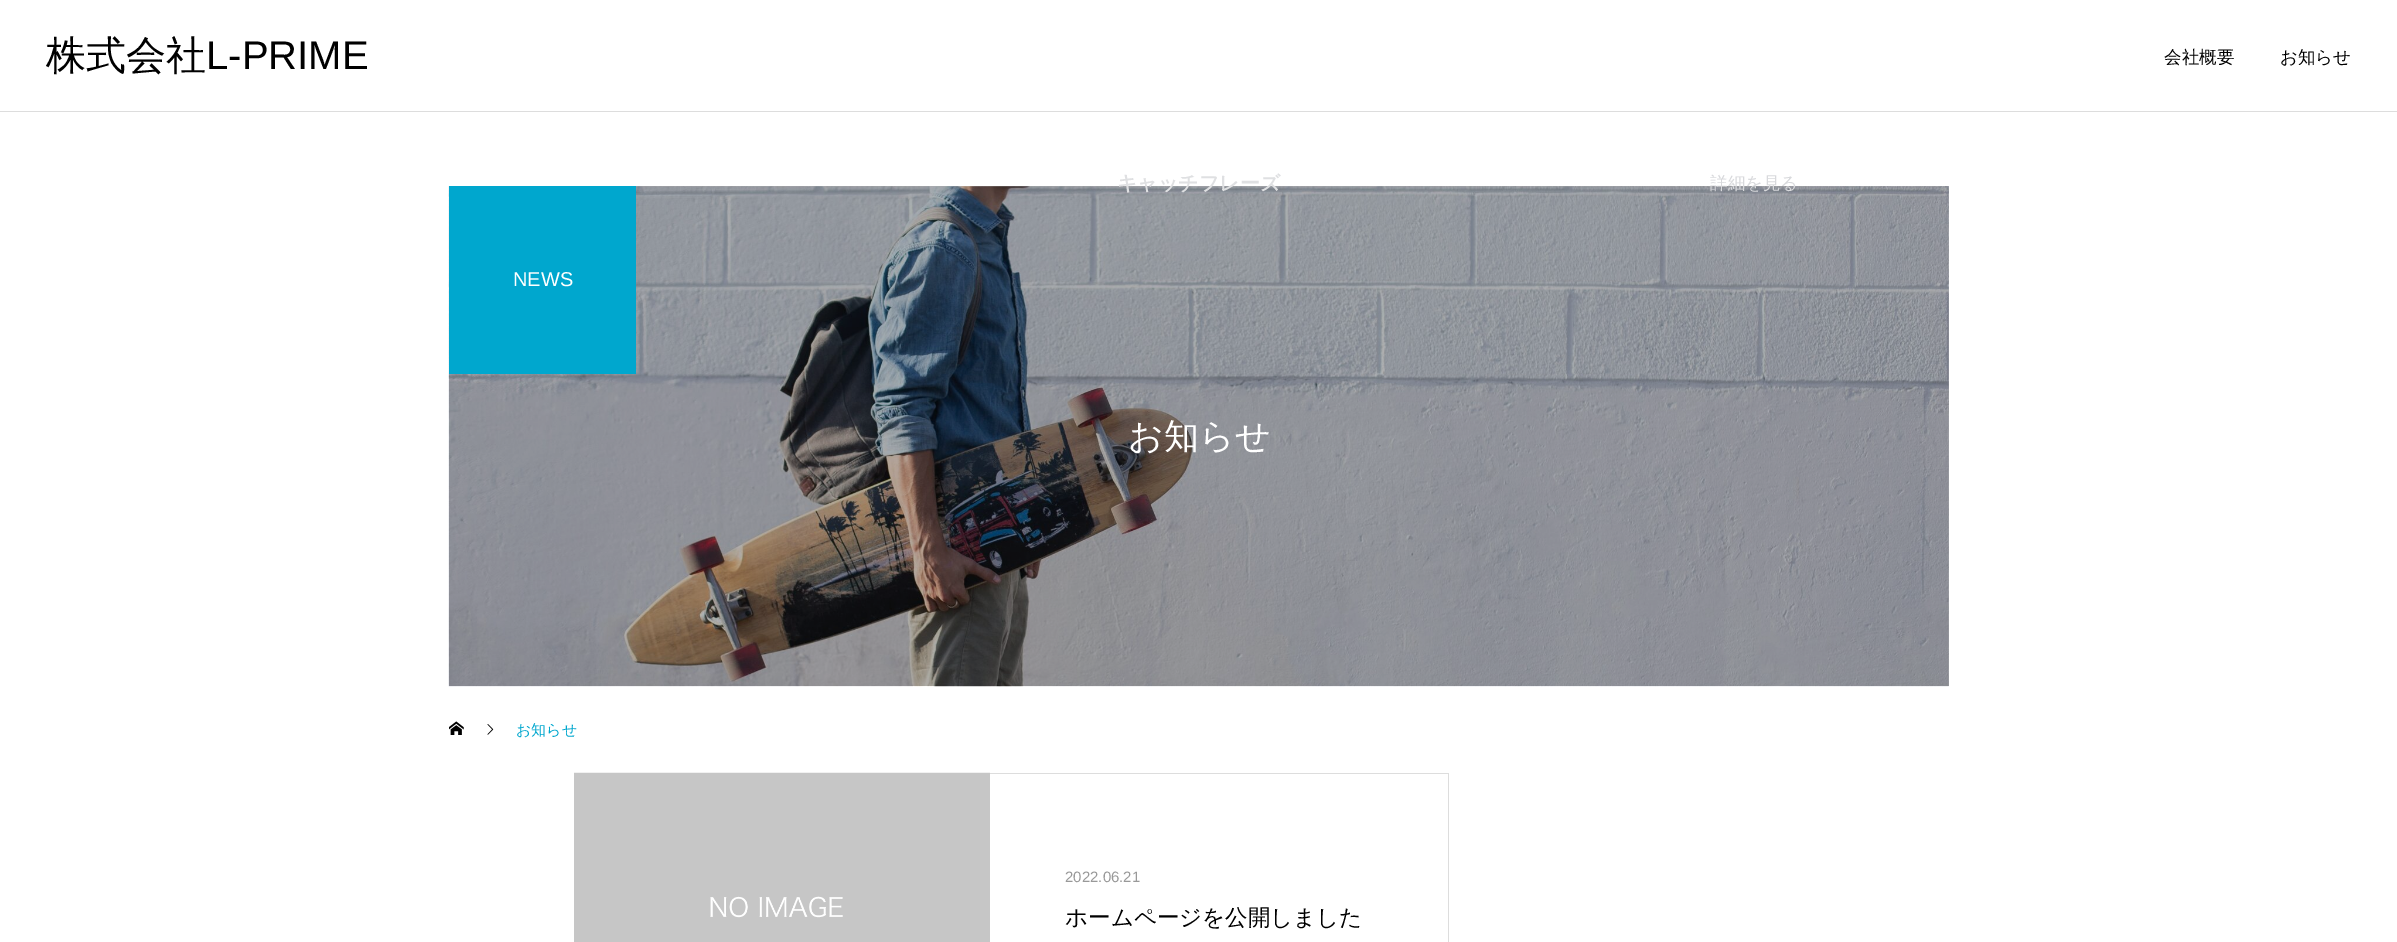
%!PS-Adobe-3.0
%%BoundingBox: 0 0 2397 942
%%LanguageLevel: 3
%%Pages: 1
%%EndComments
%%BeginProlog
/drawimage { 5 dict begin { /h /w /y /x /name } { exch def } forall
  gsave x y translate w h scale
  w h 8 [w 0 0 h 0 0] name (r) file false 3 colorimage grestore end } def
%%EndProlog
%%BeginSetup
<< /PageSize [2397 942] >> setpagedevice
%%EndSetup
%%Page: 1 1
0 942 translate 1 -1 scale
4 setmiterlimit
1 setgray
0 0 2397 942 rectfill
0.702 setgray
636 186 1313 500 rectfill
0.867 setgray
0 111 2397 1 rectfill
(images/1.raw) 448 186 1501 501 drawimage
0 0.655 0.808 setrgbcolor
449 186 187 188 rectfill
(images/2.raw) 449 721 15 14 drawimage
(images/3.raw) 487 724 7 11 drawimage
(images/4.raw) 574 772 416 170 drawimage
0.867 setgray
990 773 459 1 rectfill
1448 773 1 169 rectfill
/WenQuanYiZenHei-Medium [40 0 0 -40 0 0] selectfont
0 setgray
46 69 moveto (株式会社) show
/LiberationSans-Regular [40 0 0 -40 0 0] selectfont
206 69 moveto (L-PRIME) show
/WenQuanYiZenHei-Medium [17.5 0 0 -17.5 0 0] selectfont
2164 63 moveto (会社概要) show
2280 63 moveto (お知らせ) show
/WenQuanYiZenHei-Bold [20 0 0 -20 0 0] selectfont
0.875 0.878 0.886 setrgbcolor
1117 190 moveto (キャッチフレーズ) show
/WenQuanYiZenHei-Medium [17.5 0 0 -17.5 0 0] selectfont
0.847 0.851 0.863 setrgbcolor
1710 189 moveto (詳細を見る) show
/LiberationSans-Regular [20 0 0 -20 0 0] selectfont
1 setgray
513 286 moveto (NEWS) show
/WenQuanYiZenHei-Medium [35 0 0 -35 0 0] selectfont
1128 448 moveto (お知らせ) show
/WenQuanYiZenHei-Medium [15 0 0 -15 0 0] selectfont
0 0.655 0.808 setrgbcolor
516 735 moveto (お知らせ) show
/LiberationSans-Regular [15 0 0 -15 0 0] selectfont
0.6 setgray
1065 882 moveto (2022.06.21) show
/WenQuanYiZenHei-Medium [22.5 0 0 -22.5 0 0] selectfont
0 setgray
1065 925 moveto (ホームページを公開しました) show
showpage
%%EOF
